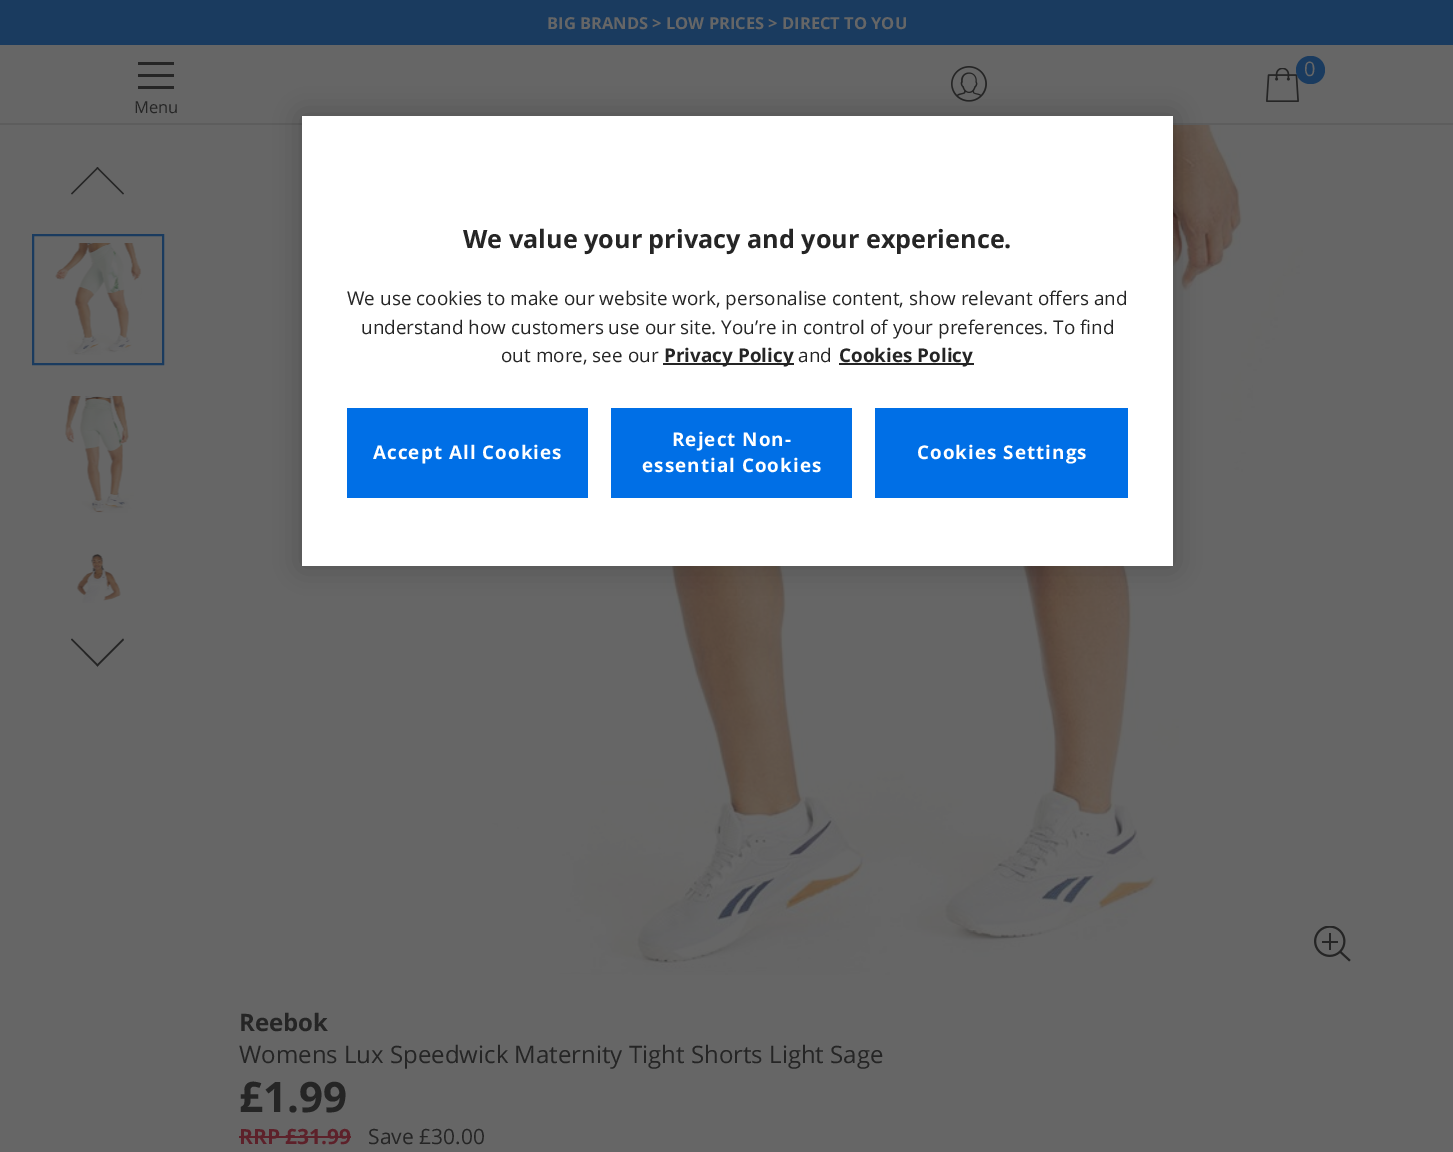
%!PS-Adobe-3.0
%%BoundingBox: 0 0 1453 1152
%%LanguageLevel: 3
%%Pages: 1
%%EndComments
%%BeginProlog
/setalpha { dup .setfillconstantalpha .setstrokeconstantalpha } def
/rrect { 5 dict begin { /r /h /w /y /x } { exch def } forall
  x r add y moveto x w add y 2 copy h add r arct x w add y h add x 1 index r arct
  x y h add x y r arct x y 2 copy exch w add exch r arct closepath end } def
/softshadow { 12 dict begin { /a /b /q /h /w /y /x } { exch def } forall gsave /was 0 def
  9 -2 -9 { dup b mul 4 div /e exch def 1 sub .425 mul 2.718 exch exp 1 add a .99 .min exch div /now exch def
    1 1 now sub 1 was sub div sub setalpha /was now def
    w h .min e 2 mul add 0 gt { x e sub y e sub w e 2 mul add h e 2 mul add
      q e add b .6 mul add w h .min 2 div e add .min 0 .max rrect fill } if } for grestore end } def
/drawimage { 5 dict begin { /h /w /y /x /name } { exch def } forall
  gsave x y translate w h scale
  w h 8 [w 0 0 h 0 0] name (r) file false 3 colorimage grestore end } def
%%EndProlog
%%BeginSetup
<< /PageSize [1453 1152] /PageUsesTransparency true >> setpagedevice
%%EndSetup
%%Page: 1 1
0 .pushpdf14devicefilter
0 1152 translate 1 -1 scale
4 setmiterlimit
0.4 setgray
0 0 1453 1152 rectfill
0.102 0.231 0.373 setrgbcolor
0 0 1453 45 rectfill
0.365 setgray
0 123 1453 2 rectfill
(images/1.raw) 951 66 36 36 drawimage
(images/2.raw) 1266 68 33 34 drawimage
0.102 0.231 0.373 setrgbcolor
1296 56 29 28 14 rrect fill
0.145 setgray
138 62 36 3 rectfill
138 74 36 3 rectfill
138 86 36 3 rectfill
(images/6.raw) 467 125 836 850 drawimage
0 setgray
302 116 871 450 0 13.5 0.2 softshadow
1 setgray
302 116 871 450 rectfill
0.145 setgray
663 363 131 2 rectfill
839 363 135 2 rectfill
0 0.435 0.902 setrgbcolor
347 408 241 90 rectfill
611 408 241 90 rectfill
875 408 253 90 rectfill
0.145 setgray
newpath 71 193.5 moveto 97.5 167 lineto 98.5 168 lineto 72 194.5 lineto closepath fill
newpath 96.5 168 moveto 97.5 167 lineto 124 193.5 lineto 123 194.5 lineto closepath fill
0.102 0.231 0.373 setrgbcolor
2 setlinewidth
33 235 130 129 rectstroke
(images/3.raw) 55 243 87 112 drawimage
(images/4.raw) 65 396 69 117 drawimage
(images/5.raw) 76 554 45 49 drawimage
0.145 setgray
newpath 124 640 moveto 97.5 666.5 lineto 96.5 665 lineto 123 638.5 lineto closepath fill
newpath 98.5 665 moveto 97.5 666.5 lineto 71 639.5 lineto 72 638.5 lineto closepath fill
(images/7.raw) 1314 926 37 36 drawimage
0.365 0.129 0.165 setrgbcolor
239 1136 112 2 rectfill
/OpenSans-Bold [16.5 0 0 -16.5 0 0] selectfont
0.4 setgray
547 29 moveto (BIG BRANDS > LOW PRICES > DIRECT TO YOU) show
/OpenSans-Regular [20 0 0 -20 0 0] selectfont
1304 76 moveto (0) show
/OpenSans-Regular [16.5 0 0 -16.5 0 0] selectfont
0.145 setgray
134 113 moveto (Menu) show
/OpenSans-Bold [25.2 0 0 -25.2 0 0] selectfont
463 248 moveto (We value your privacy and your experience.) show
/OpenSans-Regular [18.9 0 0 -18.9 0 0] selectfont
347 305 moveto (We use cookies to make our website work, personalise content, show relevant offers and) show
361 334 moveto (understand how customers use our site. You’re in control of your preferences. To find) show
501 362 moveto (out more, see our) show
/OpenSans-Bold [18.9 0 0 -18.9 0 0] selectfont
664 362 moveto (Privacy Policy) show
/OpenSans-Regular [18.9 0 0 -18.9 0 0] selectfont
798 362 moveto (and) show
/OpenSans-Bold [18.9 0 0 -18.9 0 0] selectfont
839 362 moveto (Cookies Policy) show
1 setgray
373 459 moveto 1 0 (Accept All Cookies) ashow
672 446 moveto 1 0 (Reject Non-) ashow
642 472 moveto 1 0 (essential Cookies) ashow
917 459 moveto 1 0 (Cookies Settings) ashow
/OpenSans-Bold [24 0 0 -24 0 0] selectfont
0.145 setgray
239 1031 moveto (Reebok) show
/OpenSans-Regular [24 0 0 -24 0 0] selectfont
239 1063 moveto (Womens Lux Speedwick Maternity Tight Shorts Light Sage) show
/OpenSans-Bold [42 0 0 -42 0 0] selectfont
239 1112 moveto (£1.99) show
/OpenSans-Bold [21 0 0 -21 0 0] selectfont
0.365 0.129 0.165 setrgbcolor
239 1144 moveto (RRP £31.99) show
/OpenSans-Regular [21 0 0 -21 0 0] selectfont
0.145 setgray
368 1144 moveto (Save £30.00) show
.poppdf14devicefilter showpage
%%EOF
